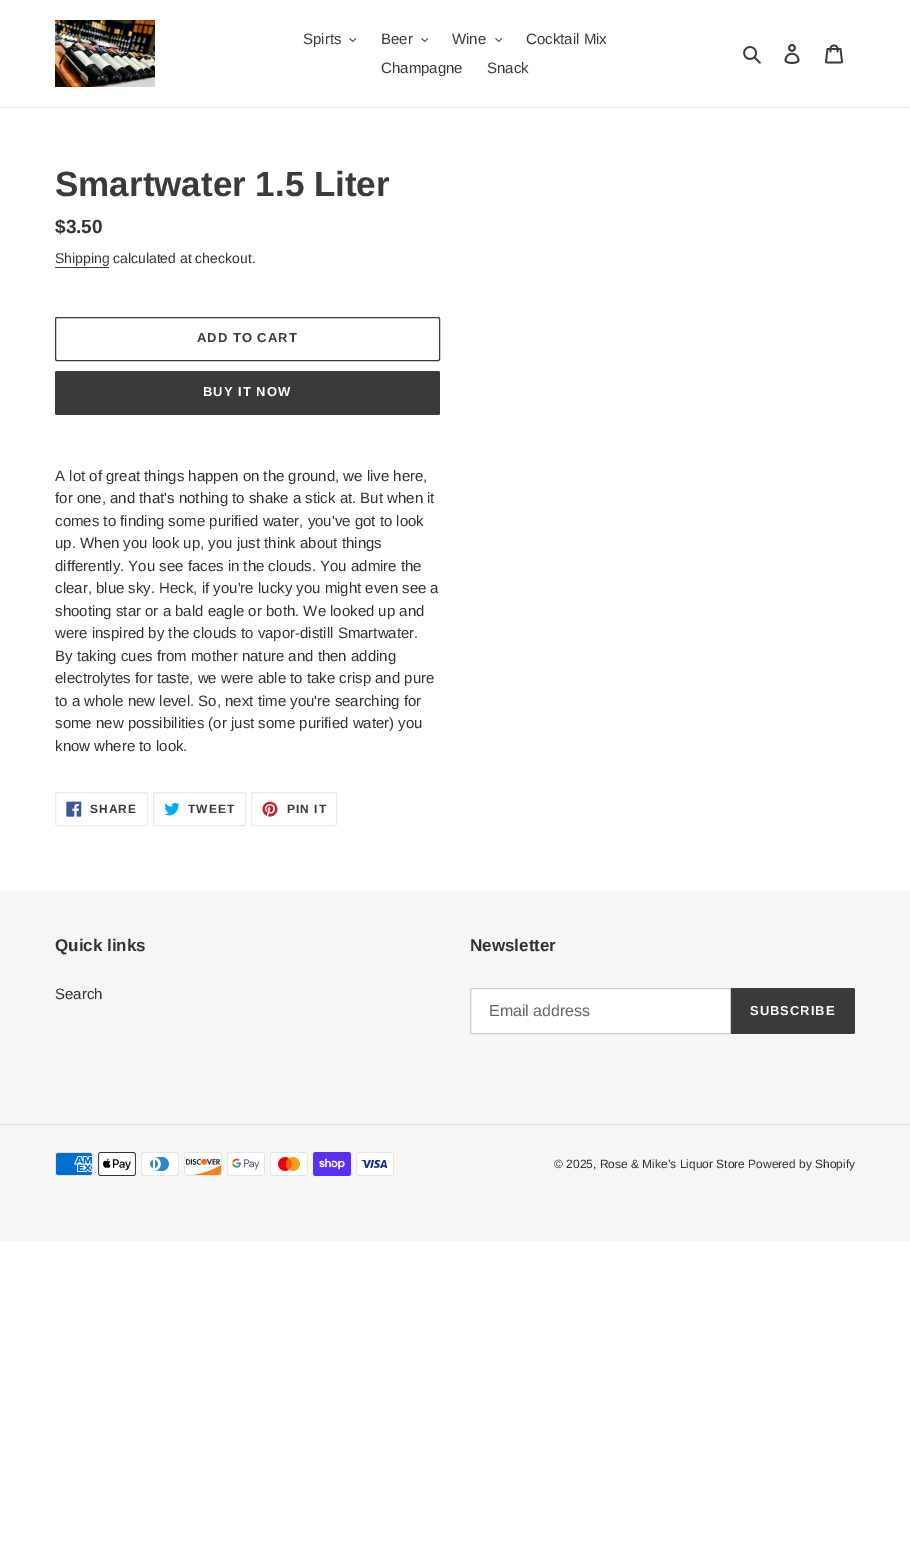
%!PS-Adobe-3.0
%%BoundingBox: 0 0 910 1565
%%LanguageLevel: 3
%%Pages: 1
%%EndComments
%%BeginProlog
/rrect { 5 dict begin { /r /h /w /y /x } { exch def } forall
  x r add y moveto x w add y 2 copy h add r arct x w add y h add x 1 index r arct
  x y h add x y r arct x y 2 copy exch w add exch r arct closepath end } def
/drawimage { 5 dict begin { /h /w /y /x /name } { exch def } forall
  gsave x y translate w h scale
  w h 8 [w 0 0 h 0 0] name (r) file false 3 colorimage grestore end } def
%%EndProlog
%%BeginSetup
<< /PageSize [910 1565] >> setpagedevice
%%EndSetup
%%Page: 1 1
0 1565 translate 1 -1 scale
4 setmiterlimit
1 setgray
0 0 910 1565 rectfill
0.922 setgray
0 107 910 1 rectfill
(images/1.raw) 55 20 100 67 drawimage
(images/2.raw) 349 38 8 4 drawimage
(images/3.raw) 421 38 7 4 drawimage
(images/3.raw) 495 38 7 4 drawimage
(images/4.raw) 743 46 18 18 drawimage
(images/5.raw) 784 44 16 20 drawimage
(images/6.raw) 825 44 18 20 drawimage
0.227 setgray
55 267 54 1 rectfill
55.5 317.5 384 43 1.5 rrect stroke
55 371 385 44 2 rrect fill
0.922 setgray
55.5 792.5 92 33 1.5 rrect stroke
(images/7.raw) 66 801 16 16 drawimage
153.5 792.5 92 33 1.5 rrect stroke
(images/8.raw) 164 802 16 14 drawimage
251.5 792.5 85 33 1.5 rrect stroke
(images/9.raw) 262 801 16 16 drawimage
0.965 setgray
0 891 910 350 rectfill
1 setgray
newpath 472 988.5 moveto 730.5 988.5 lineto 730.5 1033.5 lineto 472 1033.5 lineto 471 1033.5 470.5 1033 470.5 1032 curveto 470.5 990 lineto 470.5 989 471 988.5 472 988.5 curveto closepath gsave fill grestore
0.8 setgray
stroke
0.227 setgray
newpath 731 988 moveto 853 988 lineto 854 988 855 989 855 990 curveto 855 1032 lineto 855 1033 854 1034 853 1034 curveto 731 1034 lineto closepath fill
0.867 setgray
0 1124 910 1 rectfill
(images/10.raw) 55 1152 38 24 drawimage
(images/11.raw) 98 1152 38 24 drawimage
(images/12.raw) 141 1152 38 24 drawimage
(images/13.raw) 184 1152 38 24 drawimage
(images/14.raw) 227 1152 38 24 drawimage
(images/15.raw) 270 1152 38 24 drawimage
(images/16.raw) 313 1152 38 24 drawimage
(images/17.raw) 356 1152 38 24 drawimage
/LiberationSans-Regular [15 0 0 -15 0 0] selectfont
0.227 setgray
303 44 moveto (Spirts) show
381 44 moveto (Beer) show
452 44 moveto (Wine) show
526 44 moveto (Cocktail Mix) show
381 73 moveto (Champagne) show
487 73 moveto (Snack) show
/LiberationSans-Bold [35 0 0 -35 0 0] selectfont
55 196 moveto (Smartwater 1.5 Liter) show
/LiberationSans-Bold [19 0 0 -19 0 0] selectfont
0.2 0.196 0.196 setrgbcolor
55 233 moveto ($3.50) show
/LiberationSans-Regular [14 0 0 -14 0 0] selectfont
0.227 setgray
55 263 moveto (Shipping) show
0.2 0.196 0.196 setrgbcolor
113 263 moveto (calculated at checkout.) show
/LiberationSans-Bold [13 0 0 -13 0 0] selectfont
0.227 setgray
197 342 moveto 1 0 (ADD TO CART) ashow
1 setgray
203 396 moveto 1 0 (BUY IT NOW) ashow
/LiberationSans-Regular [15 0 0 -15 0 0] selectfont
0.2 0.196 0.196 setrgbcolor
55 481 moveto (A lot of great things happen on the ground, we live here,) show
55 503 moveto (for one, and that's nothing to shake a stick at. But when it) show
55 526 moveto (comes to finding some purified water, you've got to look) show
55 548 moveto (up. When you look up, you just think about things) show
55 571 moveto (differently. You see faces in the clouds. You admire the) show
55 593 moveto (clear, blue sky. Heck, if you're lucky you might even see a) show
55 616 moveto (shooting star or a bald eagle or both. We looked up and) show
55 638 moveto (were inspired by the clouds to vapor-distill Smartwater.) show
55 661 moveto (By taking cues from mother nature and then adding) show
55 683 moveto (electrolytes for taste, we were able to take crisp and pure) show
55 706 moveto (to a whole new level. So, next time you're searching for) show
55 728 moveto (some new possibilities \(or just some purified water\) you) show
55 751 moveto (know where to look.) show
/LiberationSans-Bold [12 0 0 -12 0 0] selectfont
0.227 setgray
90 813 moveto 1 0 (SHARE) ashow
188 813 moveto 1 0 (TWEET) ashow
287 813 moveto 1 0 (PIN IT) ashow
/LiberationSans-Bold [17 0 0 -17 0 0] selectfont
0.2 0.196 0.196 setrgbcolor
55 951 moveto (Quick links) show
/LiberationSans-Regular [15 0 0 -15 0 0] selectfont
55 999 moveto (Search) show
/LiberationSans-Bold [17 0 0 -17 0 0] selectfont
470 951 moveto (Newsletter) show
/LiberationSans-Regular [16 0 0 -16 0 0] selectfont
0.4 setgray
489 1016 moveto (Email address) show
/LiberationSans-Bold [13 0 0 -13 0 0] selectfont
1 setgray
750 1015 moveto 1 0 (SUBSCRIBE) ashow
/LiberationSans-Regular [12 0 0 -12 0 0] selectfont
0.2 0.196 0.196 setrgbcolor
554 1168 moveto (© 2025, Rose & Mike’s Liquor Store Powered by Shopify) show
showpage
%%EOF
